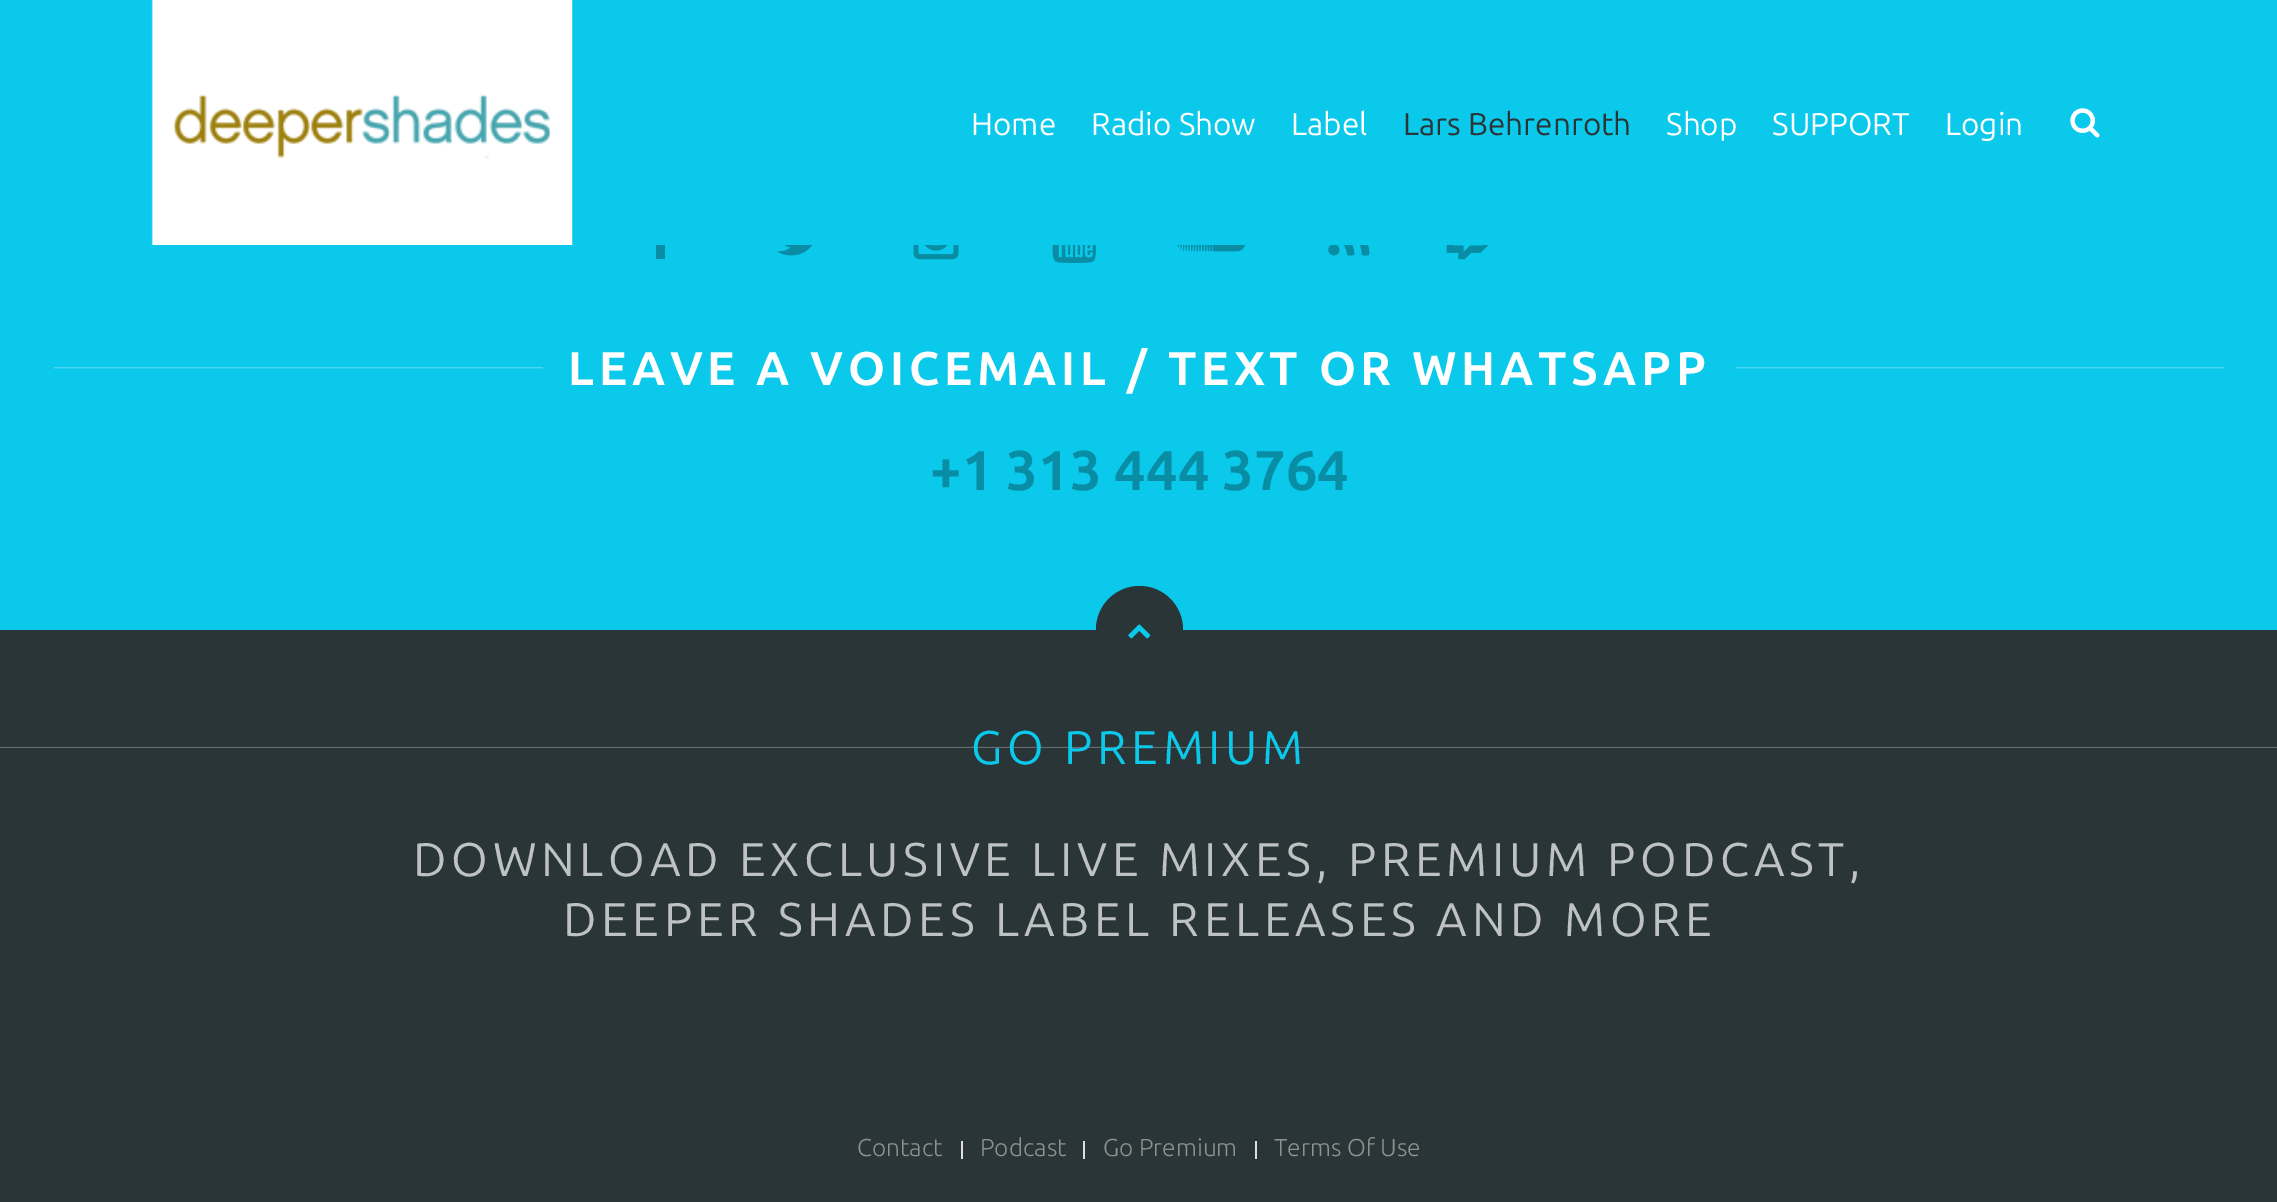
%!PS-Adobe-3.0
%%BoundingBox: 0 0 2277 1202
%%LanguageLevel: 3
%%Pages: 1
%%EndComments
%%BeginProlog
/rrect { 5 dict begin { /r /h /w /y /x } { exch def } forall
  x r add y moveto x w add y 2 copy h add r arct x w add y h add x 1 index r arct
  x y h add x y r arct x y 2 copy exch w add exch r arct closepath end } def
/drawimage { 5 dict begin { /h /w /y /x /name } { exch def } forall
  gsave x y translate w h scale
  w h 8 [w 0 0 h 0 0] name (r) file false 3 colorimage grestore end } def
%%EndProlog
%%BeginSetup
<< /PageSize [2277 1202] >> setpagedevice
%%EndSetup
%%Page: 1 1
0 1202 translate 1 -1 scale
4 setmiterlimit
0.043 0.788 0.922 setrgbcolor
0 0 2277 1202 rectfill
0.031 0.553 0.647 setrgbcolor
newpath 674 211 moveto 674 219 lineto 664 219 665 219 665 228 curveto 674 228 lineto 672 237 lineto 665 237 lineto 665 259 lineto 656 259 lineto 656 237 lineto 649 237 lineto 649 228 lineto 656 228 lineto 656 219 lineto 658 211 667 210 674 211 curveto closepath fill
0.043 0.788 0.922 setrgbcolor
649 210 25 35 rectfill
(images/1.raw) 151 0 422 245 drawimage
(images/2.raw) 2070 108 30 30 drawimage
(images/3.raw) 777 245 36 11 drawimage
(images/4.raw) 913 245 46 15 drawimage
(images/5.raw) 1052 245 44 18 drawimage
(images/6.raw) 1178 245 67 7 drawimage
(images/7.raw) 1328 245 42 11 drawimage
(images/8.raw) 1446 245 43 15 drawimage
gsave newpath 54 367 moveto 2224 367 lineto 2224 369 lineto 54 369 lineto closepath clip newpath
<< /ShadingType 2 /ColorSpace /DeviceRGB /Coords [1139 338 1139 397] /Extend [true true] /Function << /FunctionType 3 /Domain [0 1] /Functions [<< /FunctionType 2 /Domain [0 1] /C0 [0.043 0.788 0.922] /C1 [0.043 0.788 0.922] /N 1 >> << /FunctionType 2 /Domain [0 1] /C0 [0.043 0.788 0.922] /C1 [0.522 0.894 0.961] /N 1 >> << /FunctionType 2 /Domain [0 1] /C0 [0.522 0.894 0.961] /C1 [0.043 0.788 0.922] /N 1 >> << /FunctionType 2 /Domain [0 1] /C0 [0.043 0.788 0.922] /C1 [0.043 0.788 0.922] /N 1 >>] /Bounds [0.49 0.51 0.53] /Encode [0 1 0 1 0 1 0 1] >> >> shfill grestore
543 367 1193 2 rectfill
0.165 0.208 0.216 setrgbcolor
0 630 2277 572 rectfill
1096 586 87 88 43.5 rrect fill
(images/9.raw) 1128 624 23 15 drawimage
gsave newpath 0 746 moveto 2277 746 lineto 2277 749 lineto 0 749 lineto closepath clip newpath
<< /ShadingType 2 /ColorSpace /DeviceRGB /Coords [1139 717 1139 777] /Extend [true true] /Function << /FunctionType 3 /Domain [0 1] /Functions [<< /FunctionType 2 /Domain [0 1] /C0 [0.165 0.208 0.216] /C1 [0.165 0.208 0.216] /N 1 >> << /FunctionType 2 /Domain [0 1] /C0 [0.165 0.208 0.216] /C1 [0.416 0.447 0.451] /N 1 >> << /FunctionType 2 /Domain [0 1] /C0 [0.416 0.447 0.451] /C1 [0.165 0.208 0.216] /N 1 >> << /FunctionType 2 /Domain [0 1] /C0 [0.165 0.208 0.216] /C1 [0.165 0.208 0.216] /N 1 >>] /Bounds [0.49 0.51 0.53] /Encode [0 1 0 1 0 1 0 1] >> >> shfill grestore
0.867 setgray
961 1141 2 18 rectfill
1083 1141 2 18 rectfill
1255 1141 2 18 rectfill
/Ubuntu-Regular [31.5 0 0 -31.5 0 0] selectfont
1 setgray
971 135 moveto (Home) show
1091 135 moveto (Radio Show) show
1291 135 moveto (Label) show
0.165 0.208 0.216 setrgbcolor
1403 135 moveto (Lars Behrenroth) show
1 setgray
1666 135 moveto (Shop) show
1772 135 moveto (SUPPORT) show
1945 135 moveto (Login) show
/Ubuntu-Bold [47.25 0 0 -47.25 0 0] selectfont
568 385 moveto 4.75 0 (LEAVE A VOICEMAIL / TEXT OR WHATSAPP) ashow
/Ubuntu-Bold [56 0 0 -56 0 0] selectfont
0.031 0.553 0.647 setrgbcolor
930 490 moveto (+1 313 444 3764) show
/Ubuntu-Regular [47.25 0 0 -47.25 0 0] selectfont
0.043 0.788 0.922 setrgbcolor
971 764 moveto 4.75 0 (GO PREMIUM) ashow
0.749 0.761 0.765 setrgbcolor
413 876 moveto 4.75 0 (DOWNLOAD EXCLUSIVE LIVE MIXES, PREMIUM PODCAST,) ashow
563 936 moveto 4.75 0 (DEEPER SHADES LABEL RELEASES AND MORE) ashow
/Ubuntu-Light [24.5 0 0 -24.5 0 0] selectfont
0.569 setgray
857 1156 moveto (Contact) show
980 1156 moveto (Podcast) show
1103 1156 moveto (Go Premium) show
1274 1156 moveto (Terms Of Use) show
showpage
%%EOF
